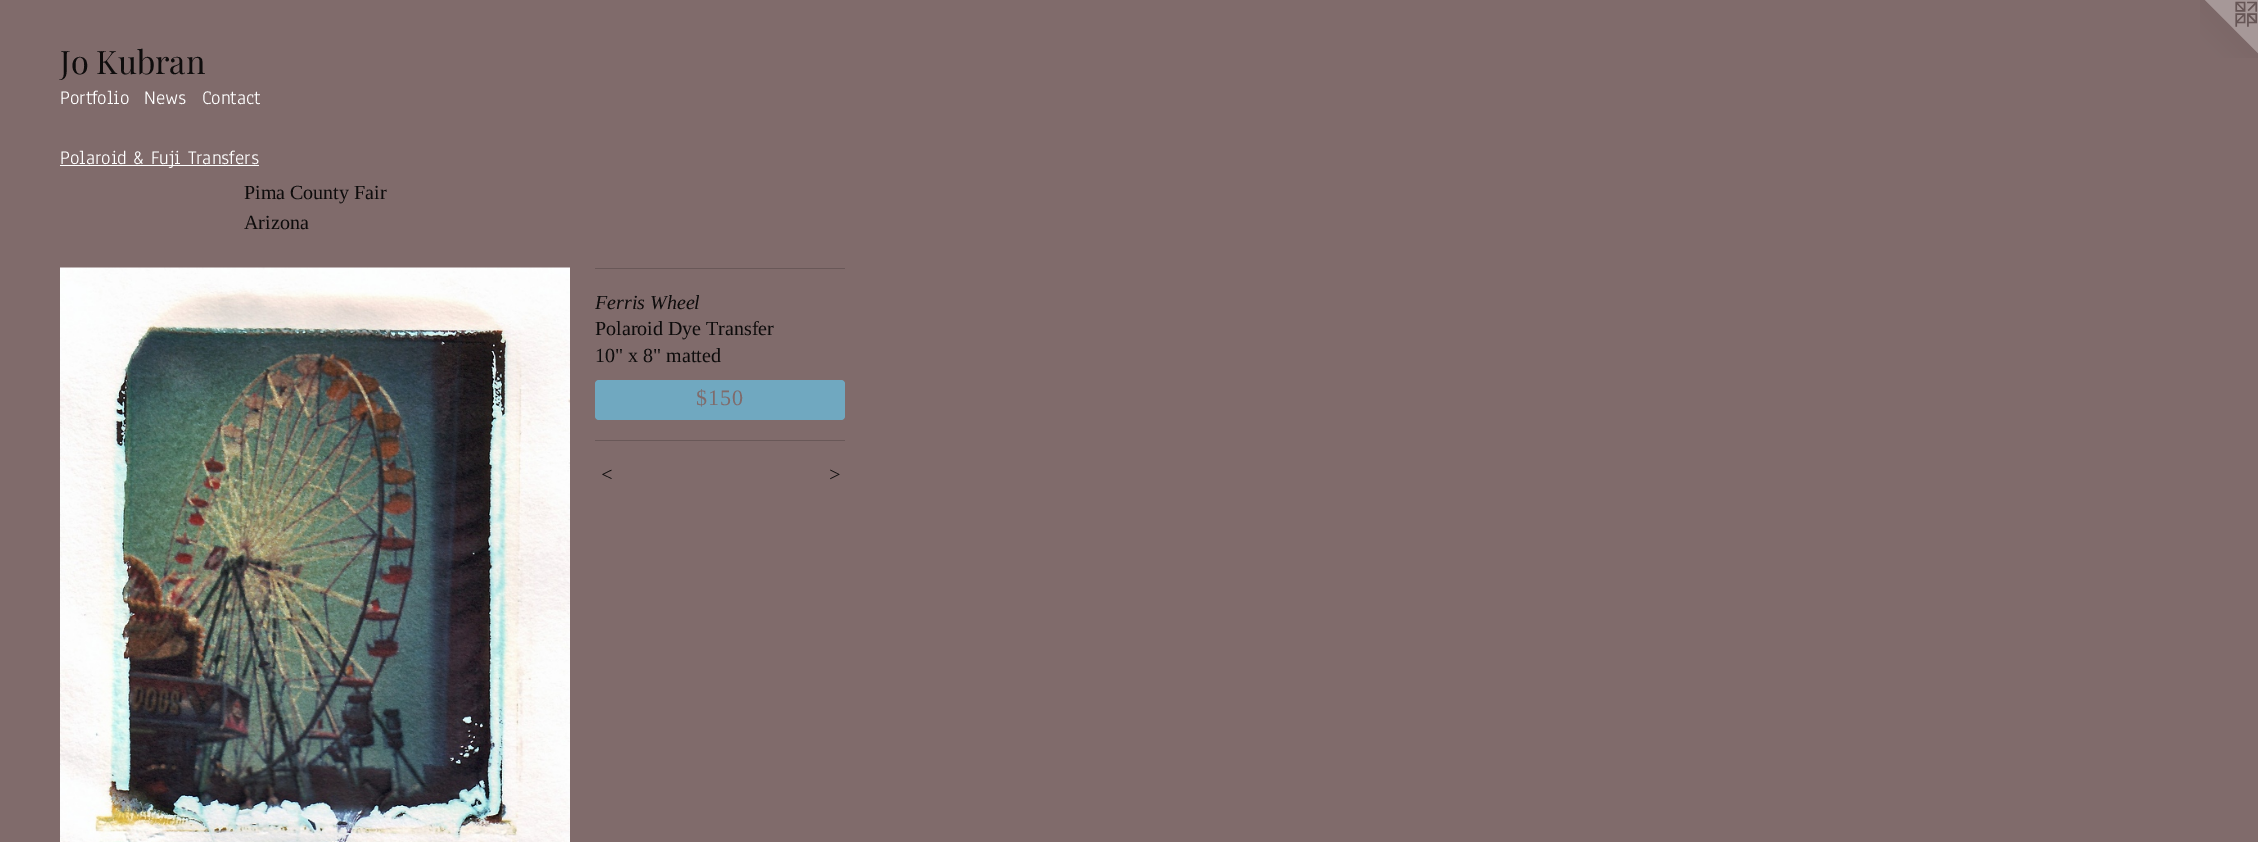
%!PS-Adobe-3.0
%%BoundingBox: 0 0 2258 842
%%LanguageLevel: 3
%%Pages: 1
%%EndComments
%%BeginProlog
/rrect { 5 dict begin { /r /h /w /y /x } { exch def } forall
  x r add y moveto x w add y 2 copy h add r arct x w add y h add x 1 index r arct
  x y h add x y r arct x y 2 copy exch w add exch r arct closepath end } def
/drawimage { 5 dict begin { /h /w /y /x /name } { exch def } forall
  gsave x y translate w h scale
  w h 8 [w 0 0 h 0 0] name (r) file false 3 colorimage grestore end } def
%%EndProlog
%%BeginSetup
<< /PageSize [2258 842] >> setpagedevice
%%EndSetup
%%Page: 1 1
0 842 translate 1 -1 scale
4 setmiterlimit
0.502 0.42 0.42 setrgbcolor
0 0 2258 842 rectfill
(images/1.raw) 2200 0 58 58 drawimage
1 setgray
60 165 199 1 rectfill
(images/2.raw) 60 267 510 575 drawimage
0.412 0.345 0.345 setrgbcolor
595 268 250 1 rectfill
0.439 0.659 0.753 setrgbcolor
595 380 250 40 4 rrect fill
0.412 0.345 0.345 setrgbcolor
595 440 250 1 rectfill
/PlayfairDisplay-Regular [32.5 0 0 -32.5 0 0] selectfont
0.055 0.047 0.047 setrgbcolor
60 74 moveto (Jo Kubran) show
/Anaheim-Regular [20 0 0 -20 0 0] selectfont
1 setgray
60 104 moveto (Portfolio) show
144 104 moveto (News) show
202 104 moveto (Contact) show
60 164 moveto (Polaroid & Fuji Transfers) show
/LiberationSerif-Regular [20 0 0 -20 0 0] selectfont
0.055 0.047 0.047 setrgbcolor
244 199 moveto (Pima County Fair) show
244 229 moveto (Arizona) show
/LiberationSerif-Italic [20 0 0 -20 0 0] selectfont
595 309 moveto (Ferris Wheel) show
/LiberationSerif-Regular [20 0 0 -20 0 0] selectfont
595 335 moveto (Polaroid Dye Transfer) show
595 362 moveto (10" x 8" matted) show
/LiberationSerif-Regular [22 0 0 -22 0 0] selectfont
0.502 0.42 0.42 setrgbcolor
696 405 moveto 1 0 ($150) ashow
/LiberationSerif-Italic [20 0 0 -20 0 0] selectfont
0.055 0.047 0.047 setrgbcolor
600 481 moveto 1 0 (<) ashow
828 481 moveto 1 0 (>) ashow
showpage
%%EOF
